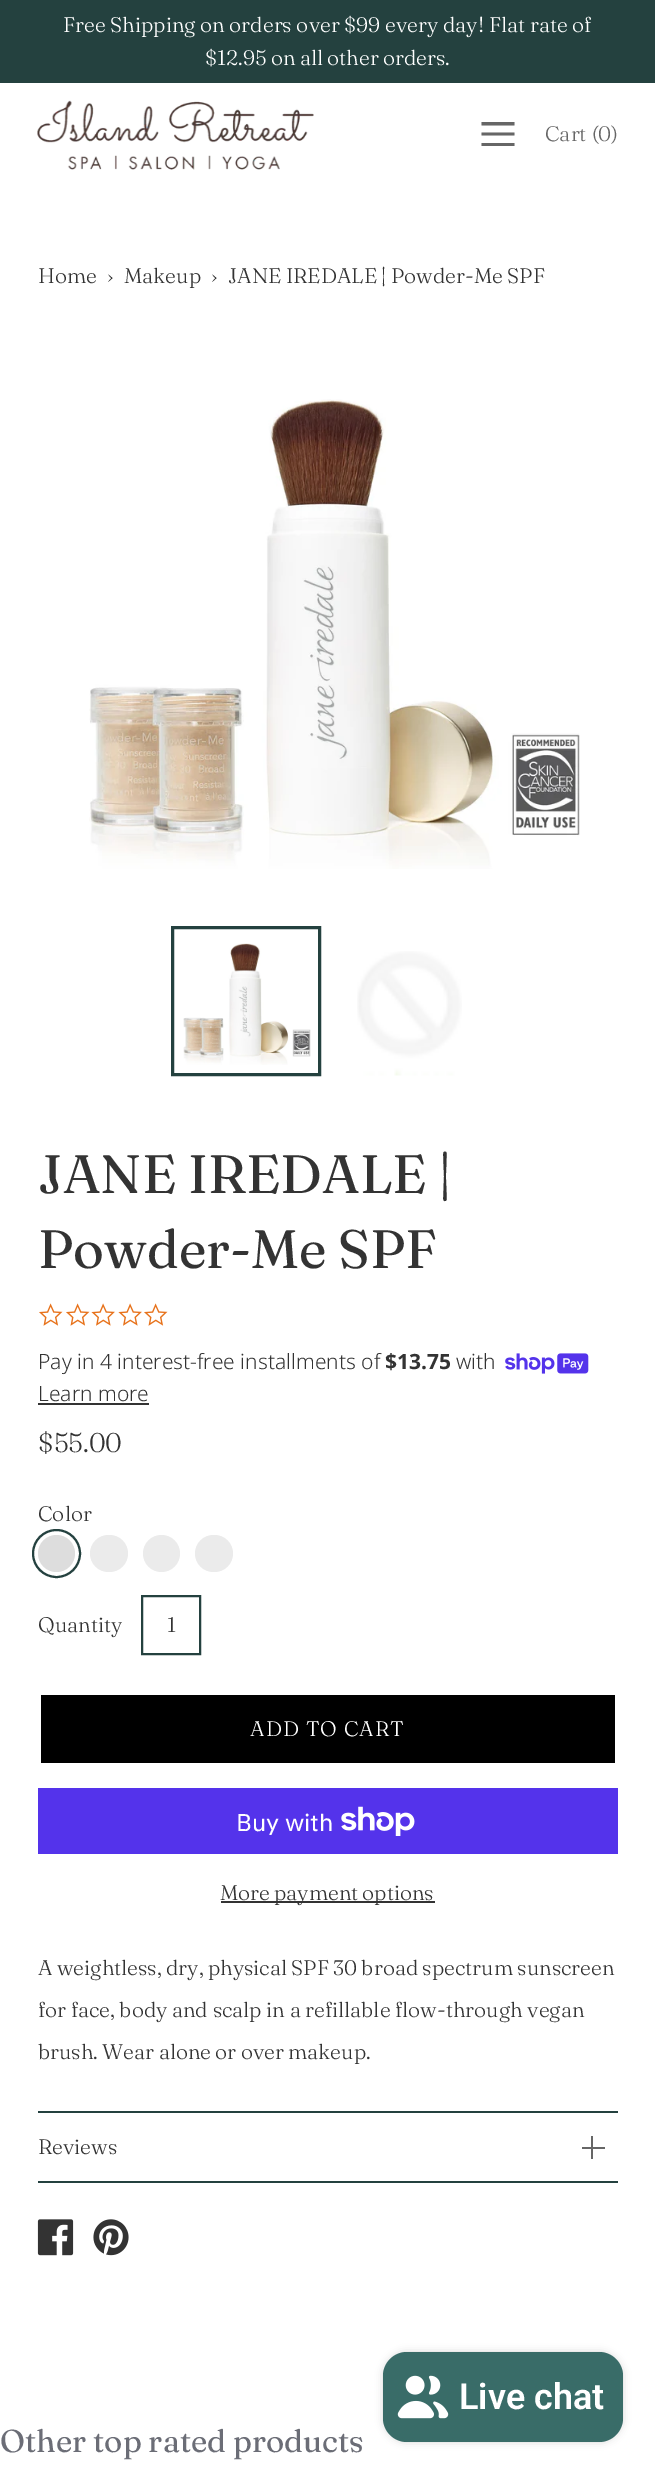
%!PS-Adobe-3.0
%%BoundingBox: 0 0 655 2473
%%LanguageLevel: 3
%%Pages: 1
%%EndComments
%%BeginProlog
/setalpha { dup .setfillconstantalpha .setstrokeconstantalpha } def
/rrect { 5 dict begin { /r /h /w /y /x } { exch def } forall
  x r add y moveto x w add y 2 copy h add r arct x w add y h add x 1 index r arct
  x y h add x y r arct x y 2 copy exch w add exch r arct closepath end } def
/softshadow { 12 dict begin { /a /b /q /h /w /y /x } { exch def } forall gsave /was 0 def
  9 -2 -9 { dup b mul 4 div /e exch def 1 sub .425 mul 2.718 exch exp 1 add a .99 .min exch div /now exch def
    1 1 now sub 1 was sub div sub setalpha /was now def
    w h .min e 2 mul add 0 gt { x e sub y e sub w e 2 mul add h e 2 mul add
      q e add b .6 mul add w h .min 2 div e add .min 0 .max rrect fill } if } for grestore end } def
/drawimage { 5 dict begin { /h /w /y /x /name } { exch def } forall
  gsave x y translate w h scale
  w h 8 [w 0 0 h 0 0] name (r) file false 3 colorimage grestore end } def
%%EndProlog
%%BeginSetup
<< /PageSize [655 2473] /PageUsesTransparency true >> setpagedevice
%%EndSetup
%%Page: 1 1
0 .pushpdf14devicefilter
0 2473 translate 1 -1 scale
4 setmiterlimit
1 setgray
0 0 655 2473 rectfill
0.141 0.255 0.247 setrgbcolor
0 0 655 83 rectfill
(images/1.raw) 37 100 277 70 drawimage
0.4 setgray
newpath 481.5 122 moveto 481.5 125.5 lineto 514.5 125.5 lineto 514.5 122 lineto closepath 481.5 132.5 moveto 481.5 135.5 lineto 514.5 135.5 lineto 514.5 132.5 lineto closepath 481.5 143 moveto 481.5 146 lineto 514.5 146 lineto 514.5 143 lineto closepath fill
(images/2.raw) 89 399 491 470 drawimage
(images/3.raw) 183 943 128 122 drawimage
0.141 0.255 0.247 setrgbcolor
3 setlinewidth
172.5 927.5 147 147 rectstroke
(images/4.raw) 357 951 105 125 drawimage
(images/5.raw) 39 1303 24 23 drawimage
(images/5.raw) 66 1303 24 23 drawimage
(images/6.raw) 91 1303 24 23 drawimage
(images/6.raw) 118 1303 24 23 drawimage
(images/5.raw) 144 1303 24 23 drawimage
(images/7.raw) 505 1353 84 21 drawimage
0.2 setgray
38 1403 111 2 rectfill
0.867 setgray
newpath 56.5 1553.5 18.5 0 360 arc closepath fill
0.141 0.255 0.247 setrgbcolor
2 setlinewidth
newpath 56.5 1553.5 23.5 0 360 arc closepath stroke
0.922 setgray
90 1535 38 37 18.5 rrect fill
newpath 161.5 1553.5 18.5 0 360 arc closepath fill
195 1535 38 37 18.5 rrect fill
0.141 0.255 0.247 setrgbcolor
142 1596 58 58 rectstroke
0 setgray
41 1695 574 68 rectfill
0.329 0.2 0.922 setrgbcolor
38 1788 580 66 rectfill
(images/8.raw) 341 1806 74 30 drawimage
0.2 setgray
221 1901 214 2 rectfill
0.141 0.255 0.247 setrgbcolor
38 2111 580 2 rectfill
38 2181 580 2 rectfill
0.4 setgray
591 2136 2 23 rectfill
582 2147 23 2 rectfill
(images/9.raw) 37 2219 37 37 drawimage
(images/10.raw) 93 2219 36 37 drawimage
0 setgray
383 2352 240 90 24 4 0.15 softshadow
0.224 0.424 0.408 setrgbcolor
383 2352 240 90 24 rrect fill
(images/11.raw) 397 2375 52 44 drawimage
/Fraunces-Light [21 0 0 -21 0 0] selectfont
1 setgray
63 32 moveto -0.25 0 32 (Free Shipping on orders over $99 every day! Flat rate of) widthshow
205 65 moveto -0.5 0 32 ($12.95 on all other orders.) widthshow
0.4 setgray
545 141 moveto (Cart \(0\)) show
0.2 setgray
38 283 moveto (Home) show
107 283 moveto (›) show
124 283 moveto (Makeup) show
211 283 moveto (›) show
228 283 moveto -0.5 0 32 (JANE IREDALE | Powder-Me SPF) widthshow
/Fraunces-Regular [54 0 0 -54 0 0] selectfont
38 1193 moveto (JANE IREDALE |) show
38 1268 moveto (Powder-Me SPF) show
/NotoSans-Light [21 0 0 -21 0 0] selectfont
38 1369 moveto (Pay in 4 interest-free installments of) show
/NotoSans-Bold [21 0 0 -21 0 0] selectfont
385 1369 moveto ($13.75) show
/NotoSans-Light [21 0 0 -21 0 0] selectfont
456 1369 moveto (with) show
38 1401 moveto (Learn more) show
/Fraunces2-Light [27 0 0 -27 0 0] selectfont
38 1452 moveto ($55.00) show
/Fraunces-Light [21 0 0 -21 0 0] selectfont
38 1521 moveto (Color) show
38 1632 moveto (Quantity) show
167 1632 moveto (1) show
1 setgray
250 1736 moveto 1 0 (ADD TO CART) ashow
/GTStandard-Regular [24 0 0 -24 0 0] selectfont
236 1831 moveto (Buy with) show
/Fraunces-Light [21 0 0 -21 0 0] selectfont
0.2 setgray
220 1900 moveto -1 0 32 (More payment options) widthshow
38 1975 moveto -0.5 0 32 (A weightless, dry, physical SPF 30 broad spectrum sunscreen) widthshow
38 2017 moveto -0.25 0 32 (for face, body and scalp in a refillable flow-through vegan) widthshow
38 2059 moveto -0.5 0 32 (brush. Wear alone or over makeup.) widthshow
38 2154 moveto (Reviews) show
/Fraunces2-Regular [31.5 0 0 -31.5 0 0] selectfont
0.42 0.427 0.463 setrgbcolor
0 2452 moveto (Other top rated products) show
/Roboto-SemiBold [36 0 0 -36 0 0] selectfont
1 setgray
459 2409 moveto (Live chat) show
.poppdf14devicefilter showpage
%%EOF
